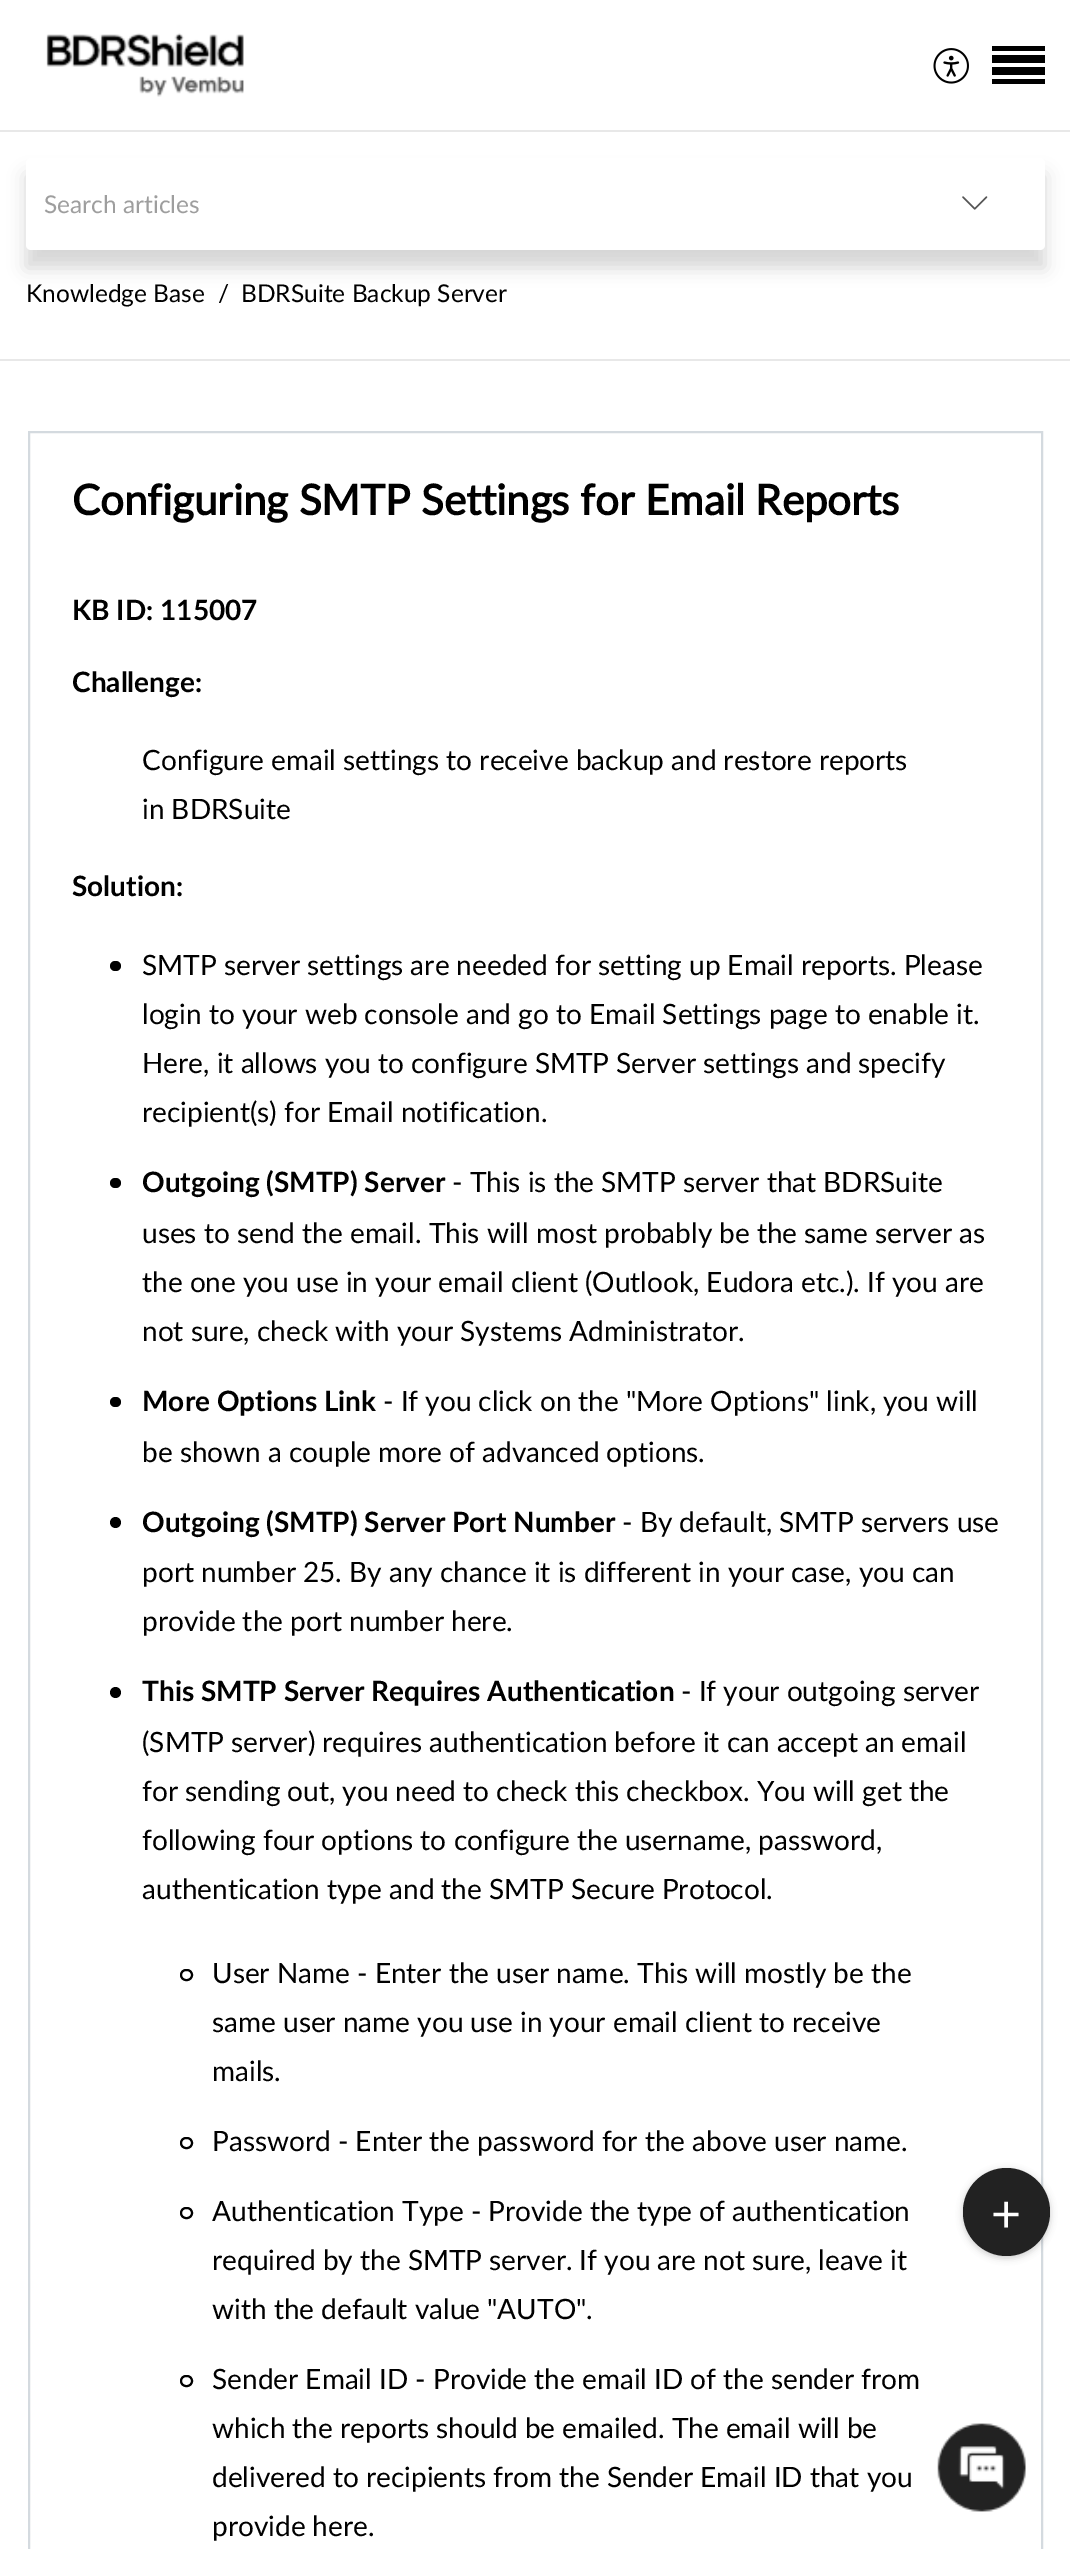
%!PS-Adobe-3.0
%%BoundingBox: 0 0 1070 2549
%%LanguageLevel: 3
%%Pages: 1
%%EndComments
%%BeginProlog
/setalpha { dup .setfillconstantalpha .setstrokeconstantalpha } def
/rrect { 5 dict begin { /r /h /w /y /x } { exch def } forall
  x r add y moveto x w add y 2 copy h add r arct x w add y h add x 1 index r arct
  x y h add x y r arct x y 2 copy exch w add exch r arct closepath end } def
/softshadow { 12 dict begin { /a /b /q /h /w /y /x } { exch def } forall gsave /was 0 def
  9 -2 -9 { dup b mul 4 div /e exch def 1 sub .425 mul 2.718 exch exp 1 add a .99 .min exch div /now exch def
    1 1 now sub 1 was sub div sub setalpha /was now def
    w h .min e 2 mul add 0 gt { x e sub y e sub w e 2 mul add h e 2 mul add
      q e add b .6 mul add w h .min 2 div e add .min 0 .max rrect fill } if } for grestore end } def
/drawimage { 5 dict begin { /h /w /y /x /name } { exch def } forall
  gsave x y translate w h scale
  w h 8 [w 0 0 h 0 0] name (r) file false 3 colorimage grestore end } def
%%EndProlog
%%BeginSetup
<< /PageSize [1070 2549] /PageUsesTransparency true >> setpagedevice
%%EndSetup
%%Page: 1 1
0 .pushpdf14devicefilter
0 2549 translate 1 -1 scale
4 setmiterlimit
1 setgray
0 0 1070 2549 rectfill
0.91 setgray
0 130 1070 2 rectfill
(images/1.raw) 46 33 198 64 drawimage
(images/2.raw) 933 48 36 36 drawimage
0 setgray
992 46 53 38 rectfill
1 setgray
992 63 53 4 rectfill
992 51 53 4 rectfill
992 75 53 4 rectfill
0 setgray
26 175 1019 93 0 9 0.16 softshadow
1 setgray
26 158 1019 92 5 rrect fill
(images/3.raw) 962 196 26 14 drawimage
0.831 0.855 0.875 setrgbcolor
2 setlinewidth
29 432 1013 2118 rectstroke
0 setgray
963 2170 87 88 43.5 3.5 0.2 softshadow
0.133 setgray
963 2168 87 88 43.5 rrect fill
0.91 setgray
0 359 1070 2 rectfill
0 setgray
110 961 11 10 5 rrect fill
110 1178 11 10 5 rrect fill
110 1397 11 10 5 rrect fill
newpath 115.5 1522.5 5.5 0 360 arc closepath fill
newpath 115.5 1692.5 5.5 0 360 arc closepath fill
181 1970 11 10 5 rrect stroke
181 2138 11 10 5 rrect stroke
181 2208 11 10 5 rrect stroke
181 2376 11 10 5 rrect stroke
(images/4.raw) 937 2423 89 89 drawimage
/Lato-Regular [24.5 0 0 -24.5 0 0] selectfont
0.62 setgray
44 213 moveto (Search articles) show
/Lato-Regular [52 0 0 -52 0 0] selectfont
1 setgray
991 2232 moveto (+) show
/Lato-Regular [24.5 0 0 -24.5 0 0] selectfont
0 setgray
26 302 moveto (Knowledge Base) show
218 302 moveto (/) show
241 302 moveto (BDRSuite Backup Server) show
/Lato-Bold [42 0 0 -42 0 0] selectfont
72 515 moveto (Configuring SMTP Settings for Email Reports) show
/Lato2-Bold [28 0 0 -28 0 0] selectfont
72 620 moveto (KB ID: 115007) show
72 692 moveto (Challenge:) show
/Lato-Regular [28 0 0 -28 0 0] selectfont
142 770 moveto (Configure email settings to receive backup and restore reports) show
142 819 moveto (in BDRSuite) show
/Lato2-Bold [28 0 0 -28 0 0] selectfont
72 896 moveto (Solution:) show
/Lato-Regular [28 0 0 -28 0 0] selectfont
142 975 moveto (SMTP server settings are needed for setting up Email reports. Please) show
142 1024 moveto (login to your web console and go to Email Settings page to enable it.) show
142 1073 moveto (Here, it allows you to configure SMTP Server settings and specify) show
142 1122 moveto (recipient\(s\) for Email notification.) show
/Lato2-Bold [28 0 0 -28 0 0] selectfont
142 1192 moveto (Outgoing \(SMTP\) Server) show
/Lato-Regular [28 0 0 -28 0 0] selectfont
452 1192 moveto (- This is the SMTP server that BDRSuite) show
142 1243 moveto (uses to send the email. This will most probably be the same server as) show
142 1292 moveto (the one you use in your email client \(Outlook, Eudora etc.\). If you are) show
142 1341 moveto (not sure, check with your Systems Administrator.) show
/Lato2-Bold [28 0 0 -28 0 0] selectfont
142 1411 moveto (More Options Link) show
/Lato-Regular [28 0 0 -28 0 0] selectfont
383 1411 moveto (- If you click on the "More Options" link, you will) show
142 1462 moveto (be shown a couple more of advanced options.) show
/Lato2-Bold [28 0 0 -28 0 0] selectfont
142 1532 moveto (Outgoing \(SMTP\) Server Port Number) show
/Lato-Regular [28 0 0 -28 0 0] selectfont
622 1532 moveto (- By default, SMTP servers use) show
142 1582 moveto (port number 25. By any chance it is different in your case, you can) show
142 1631 moveto (provide the port number here.) show
/Lato2-Bold [28 0 0 -28 0 0] selectfont
142 1701 moveto (This SMTP Server Requires Authentication) show
/Lato-Regular [28 0 0 -28 0 0] selectfont
681 1701 moveto (- If your outgoing server) show
142 1752 moveto (\(SMTP server\) requires authentication before it can accept an email) show
142 1801 moveto (for sending out, you need to check this checkbox. You will get the) show
142 1850 moveto (following four options to configure the username, password,) show
142 1899 moveto (authentication type and the SMTP Secure Protocol.) show
212 1983 moveto (User Name - Enter the user name. This will mostly be the) show
212 2032 moveto (same user name you use in your email client to receive) show
212 2081 moveto (mails.) show
212 2151 moveto (Password - Enter the password for the above user name.) show
212 2221 moveto (Authentication Type - Provide the type of authentication) show
212 2270 moveto (required by the SMTP server. If you are not sure, leave it) show
212 2319 moveto (with the default value "AUTO".) show
212 2389 moveto (Sender Email ID - Provide the email ID of the sender from) show
212 2438 moveto (which the reports should be emailed. The email will be) show
212 2487 moveto (delivered to recipients from the Sender Email ID that you) show
212 2536 moveto (provide here.) show
.poppdf14devicefilter showpage
%%EOF
